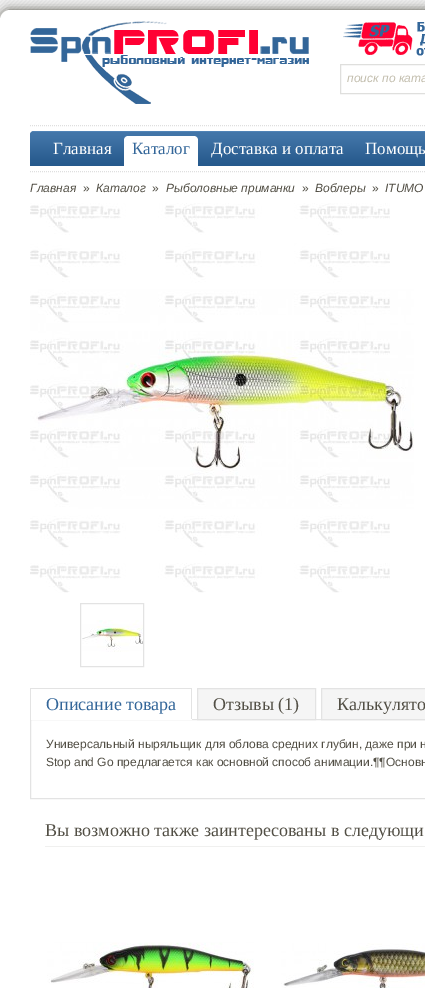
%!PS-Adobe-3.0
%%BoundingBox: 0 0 425 988
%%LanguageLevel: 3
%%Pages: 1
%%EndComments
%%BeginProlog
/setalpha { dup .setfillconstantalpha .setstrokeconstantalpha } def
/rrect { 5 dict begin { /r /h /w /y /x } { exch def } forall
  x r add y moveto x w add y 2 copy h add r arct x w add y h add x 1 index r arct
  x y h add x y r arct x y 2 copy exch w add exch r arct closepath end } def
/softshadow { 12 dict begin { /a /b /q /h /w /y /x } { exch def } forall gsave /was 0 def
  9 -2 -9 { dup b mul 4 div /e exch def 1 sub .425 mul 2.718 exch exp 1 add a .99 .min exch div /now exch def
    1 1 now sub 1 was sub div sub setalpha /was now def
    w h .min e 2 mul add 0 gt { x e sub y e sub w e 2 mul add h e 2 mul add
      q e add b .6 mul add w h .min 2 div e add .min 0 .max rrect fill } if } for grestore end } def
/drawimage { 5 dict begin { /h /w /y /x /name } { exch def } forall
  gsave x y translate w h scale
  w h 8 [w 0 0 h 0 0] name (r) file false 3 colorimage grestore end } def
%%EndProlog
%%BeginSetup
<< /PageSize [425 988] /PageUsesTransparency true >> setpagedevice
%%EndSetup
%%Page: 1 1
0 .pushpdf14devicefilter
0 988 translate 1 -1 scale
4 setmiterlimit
1 setgray
0 0 425 988 rectfill
(images/1.raw) 0 0 425 20 drawimage
0.322 0.31 0.271 setrgbcolor
0 10 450 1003 10 5 1 softshadow
1 setgray
0 10 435 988 10 rrect fill
0.875 setgray
[1 1] 0 setdash
newpath 30 125.5 moveto 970 125.5 lineto stroke
(images/2.raw) 30 21 279 83 drawimage
(images/3.raw) 343 22 82 34 drawimage
0.875 0.875 0.867 setrgbcolor
[] 0 setdash
340.5 64.5 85 29 rectstroke
(images/4.raw) 30 131 395 35 drawimage
1 setgray
newpath 128 136 moveto 194 136 lineto 196 136 198 138 198 140 curveto 198 168 lineto 124 168 lineto 124 140 lineto 124 138 126 136 128 136 curveto closepath fill
0.875 setgray
[1 1] 0 setdash
newpath 30 171.5 moveto 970 171.5 lineto stroke
(images/5.raw) 30 203 384 390 drawimage
0.89 setgray
[] 0 setdash
80.5 603.5 63 63 rectstroke
(images/6.raw) 82 620 61 32 drawimage
30 688 162 1 rectfill
30.5 719.5 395 79 rectstroke
191 688 1 32 rectfill
1 setgray
30 719 162 1 rectfill
0.89 setgray
30 688 1 32 rectfill
0.961 setgray
newpath 197.5 688.5 moveto 315.5 688.5 lineto 315.5 719.5 lineto 197.5 719.5 lineto closepath gsave fill grestore
0.89 setgray
stroke
0.961 setgray
newpath 321.5 688.5 moveto 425.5 688.5 lineto 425.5 719.5 lineto 321.5 719.5 lineto closepath gsave fill grestore
0.89 setgray
stroke
0.941 0.941 0.937 setrgbcolor
45 846 380 1 rectfill
(images/7.raw) 47 942 207 46 drawimage
(images/8.raw) 281 943 144 45 drawimage
/LiberationSans-Italic [12 0 0 -12 0 0] selectfont
0.761 0.741 0.678 setrgbcolor
347 82 moveto (поиск по ката) show
/LiberationSerif-Regular [17 0 0 -17 0 0] selectfont
1 setgray
53 154 moveto (Главная) show
0.2 0.4 0.6 setrgbcolor
132 154 moveto (Каталог) show
1 setgray
211 154 moveto (Доставка и оплата) show
365 154 moveto (Помощь) show
/LiberationSans-Italic [12 0 0 -12 0 0] selectfont
0.322 0.31 0.271 setrgbcolor
30 192 moveto (Главная) show
/LiberationSans-Regular [12 0 0 -12 0 0] selectfont
83 192 moveto (») show
/LiberationSans-Italic [12 0 0 -12 0 0] selectfont
96 192 moveto (Каталог) show
/LiberationSans-Regular [12 0 0 -12 0 0] selectfont
152 192 moveto (») show
/LiberationSans-Italic [12 0 0 -12 0 0] selectfont
166 192 moveto (Рыболовные приманки) show
/LiberationSans-Regular [12 0 0 -12 0 0] selectfont
302 192 moveto (») show
/LiberationSans-Italic [12 0 0 -12 0 0] selectfont
315 192 moveto (Воблеры) show
/LiberationSans-Regular [12 0 0 -12 0 0] selectfont
372 192 moveto (») show
/LiberationSans-Italic [12 0 0 -12 0 0] selectfont
385 192 moveto (ITUMO) show
/LiberationSerif-Regular [18 0 0 -18 0 0] selectfont
0.2 0.4 0.6 setrgbcolor
46 710 moveto (Описание товара) show
0.322 0.31 0.271 setrgbcolor
213 710 moveto (Отзывы \(1\)) show
337 710 moveto (Калькулято) show
/LiberationSans-Regular [12 0 0 -12 0 0] selectfont
46 748 moveto (Универсальный ныряльщик для облова средних глубин, даже при н) show
46 766 moveto (Stop and Go предлагается как основной способ анимации.¶¶Основн) show
/LiberationSerif-Regular [18 0 0 -18 0 0] selectfont
45 836 moveto (Вы возможно также заинтересованы в следующи) show
.poppdf14devicefilter showpage
%%EOF
